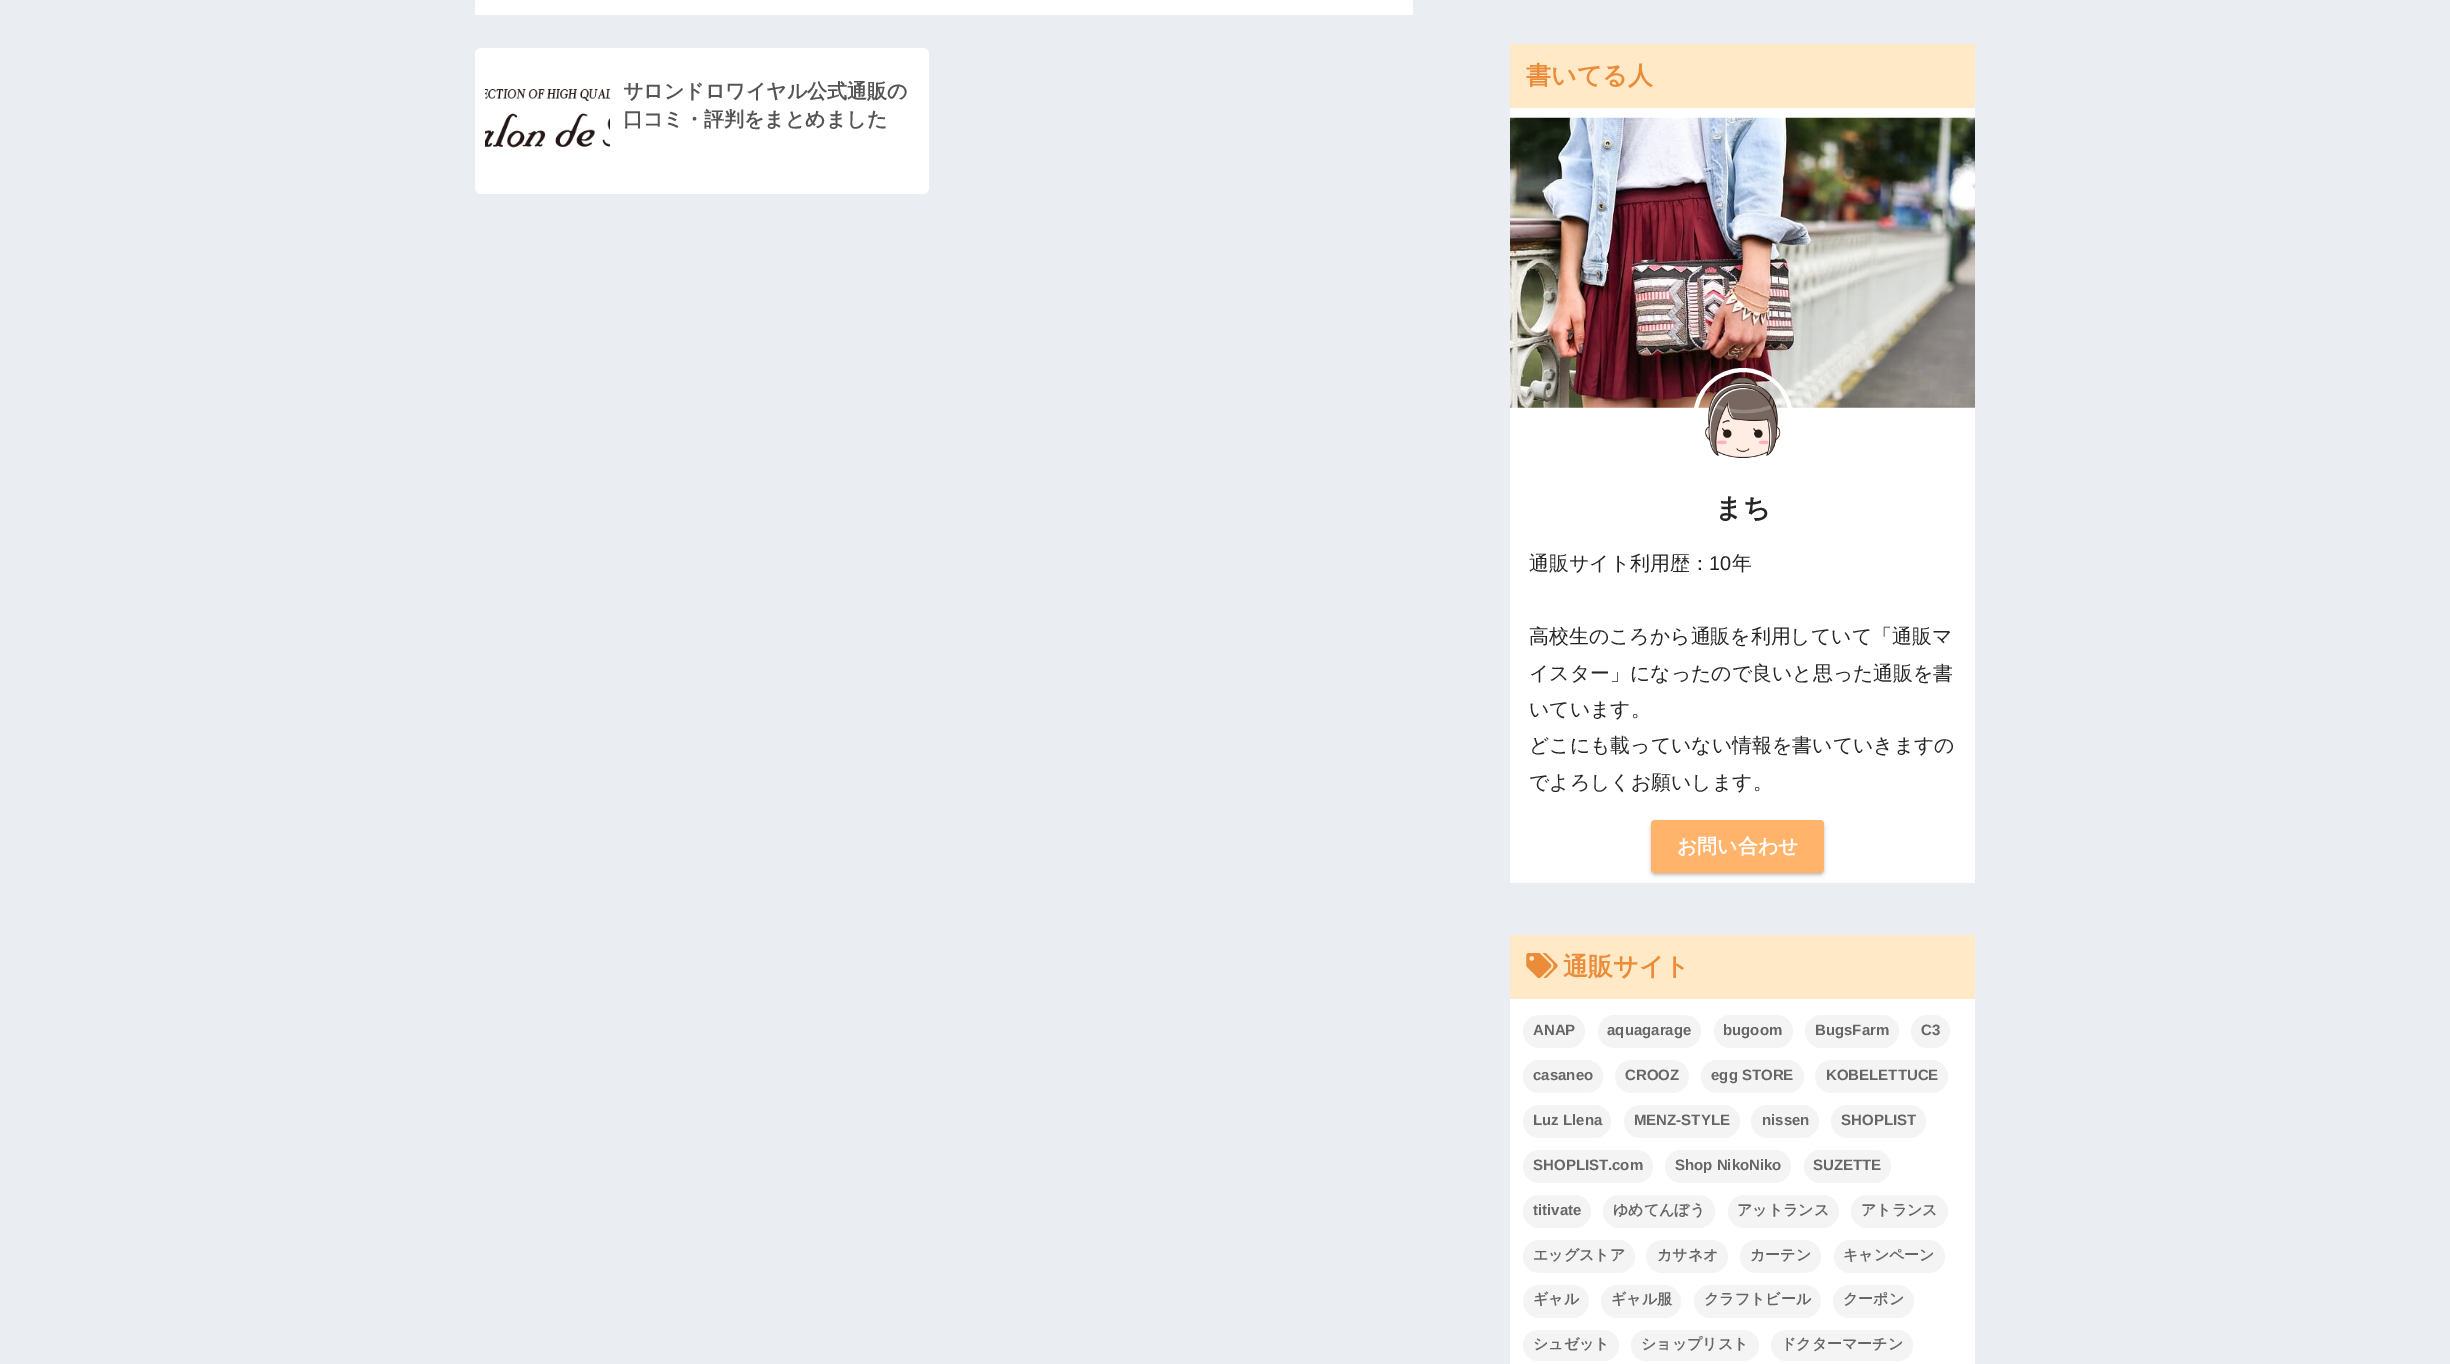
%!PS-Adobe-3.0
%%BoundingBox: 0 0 2450 1364
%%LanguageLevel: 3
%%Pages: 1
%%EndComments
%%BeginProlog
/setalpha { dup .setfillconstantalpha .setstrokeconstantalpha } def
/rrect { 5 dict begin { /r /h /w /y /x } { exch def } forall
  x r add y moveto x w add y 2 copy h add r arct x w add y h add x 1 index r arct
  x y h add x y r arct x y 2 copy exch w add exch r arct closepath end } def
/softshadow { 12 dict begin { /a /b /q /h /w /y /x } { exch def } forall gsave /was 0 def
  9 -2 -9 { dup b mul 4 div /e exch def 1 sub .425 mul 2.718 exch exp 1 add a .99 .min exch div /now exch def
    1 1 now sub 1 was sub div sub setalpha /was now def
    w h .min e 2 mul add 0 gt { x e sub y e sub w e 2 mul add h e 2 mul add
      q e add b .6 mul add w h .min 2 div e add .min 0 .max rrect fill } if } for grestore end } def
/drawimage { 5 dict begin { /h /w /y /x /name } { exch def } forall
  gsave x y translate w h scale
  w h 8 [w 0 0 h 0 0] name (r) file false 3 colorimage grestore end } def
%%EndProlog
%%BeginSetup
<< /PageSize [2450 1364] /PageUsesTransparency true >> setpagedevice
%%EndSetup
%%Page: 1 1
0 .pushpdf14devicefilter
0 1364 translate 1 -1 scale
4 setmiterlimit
0.918 0.929 0.949 setrgbcolor
0 0 2450 1364 rectfill
1 setgray
475 0 938 15 rectfill
475 48 454 146 6 rrect fill
(images/1.raw) 485 89 125 59 drawimage
1510 108 465 775 rectfill
1 0.914 0.776 setrgbcolor
1510 44 465 64 rectfill
(images/2.raw) 1510 117 465 291 drawimage
1 setgray
4 setlinewidth
newpath 1743 418 48 0 360 arc closepath stroke
(images/3.raw) 1705 377 76 81 drawimage
0 setgray
1654 825 167 48 1 2 0.15 softshadow
1651 823 173 52 4 2 0.2 softshadow
1 0.702 0.42 setrgbcolor
1651 820 173 53 4 rrect fill
1 setgray
1510 999 465 365 rectfill
1 0.914 0.776 setrgbcolor
1510 935 465 64 rectfill
(images/4.raw) 1526 953 32 26 drawimage
0.957 setgray
1523 1015 62 33 16.5 rrect fill
1598 1015 103 33 16.5 rrect fill
1714 1015 79 33 16.5 rrect fill
1805 1015 94 33 16.5 rrect fill
1911 1015 39 33 16.5 rrect fill
1523 1060 80 33 16.5 rrect fill
1615 1060 74 33 16.5 rrect fill
1701 1060 103 33 16.5 rrect fill
1815 1060 133 33 16.5 rrect fill
1523 1105 88 33 16.5 rrect fill
1624 1105 116 33 16.5 rrect fill
1751 1105 68 33 16.5 rrect fill
1831 1105 95 33 16.5 rrect fill
1523 1150 130 33 16.5 rrect fill
1665 1150 126 33 16.5 rrect fill
1804 1150 87 33 16.5 rrect fill
1523 1195 68 33 16.5 rrect fill
1603 1195 112 33 16.5 rrect fill
1728 1195 111 33 16.5 rrect fill
1851 1195 97 33 16.5 rrect fill
1523 1240 112 33 16.5 rrect fill
1646 1240 82 33 16.5 rrect fill
1740 1240 81 33 16.5 rrect fill
1834 1240 111 33 16.5 rrect fill
1523 1285 66 33 16.5 rrect fill
1601 1285 80 33 16.5 rrect fill
1694 1285 127 33 16.5 rrect fill
1833 1285 81 33 16.5 rrect fill
1523 1330 96 31 15.5 rrect fill
1631 1330 128 31 15.5 rrect fill
1771 1330 142 31 15.5 rrect fill
/WenQuanYiZenHei-Bold [20 0 0 -20 0 0] selectfont
0.333 setgray
623 98 moveto (サロンドロワイヤル公式通販の) show
623 126 moveto (口コミ・評判をまとめました) show
/WenQuanYiZenHei-Bold [25 0 0 -25 0 0] selectfont
0.918 0.549 0.227 setrgbcolor
1526 84 moveto (書いてる人) show
/WenQuanYiZenHei-Bold [27 0 0 -27 0 0] selectfont
0.145 setgray
1715 517 moveto (まち) show
/WenQuanYiZenHei-Medium [19.9 0 0 -19.9 0 0] selectfont
1529 570 moveto (通販サイト利用歴：) show
/LiberationSans-Regular [19.9 0 0 -19.9 0 0] selectfont
1709 570 moveto (10) show
/WenQuanYiZenHei-Medium [19.9 0 0 -19.9 0 0] selectfont
1732 570 moveto (年) show
1529 643 moveto (高校生のころから通販を利用していて「通販マ) show
1529 680 moveto (イスター」になったので良いと思った通販を書) show
1529 716 moveto (いています。) show
1529 752 moveto (どこにも載っていない情報を書いていきますの) show
1529 789 moveto (でよろしくお願いします。) show
/WenQuanYiZenHei-Bold [19.9 0 0 -19.9 0 0] selectfont
1 setgray
1677 853 moveto (お問い合わせ) show
/WenQuanYiZenHei-Bold [25 0 0 -25 0 0] selectfont
0.918 0.549 0.227 setrgbcolor
1563 975 moveto (通販サイト) show
/LiberationSans-Bold [15 0 0 -15 0 0] selectfont
0.4 setgray
1533 1035 moveto (ANAP) show
1607 1035 moveto (aquagarage) show
1723 1035 moveto (bugoom) show
1815 1035 moveto (BugsFarm) show
1921 1035 moveto (C3) show
1533 1080 moveto (casaneo) show
1625 1080 moveto (CROOZ) show
1711 1080 moveto (egg STORE) show
1826 1080 moveto (KOBELETTUCE) show
1533 1125 moveto (Luz Llena) show
1634 1125 moveto (MENZ-STYLE) show
1762 1125 moveto (nissen) show
1841 1125 moveto (SHOPLIST) show
1533 1170 moveto (SHOPLIST.com) show
1675 1170 moveto (Shop NikoNiko) show
1813 1170 moveto (SUZETTE) show
1533 1215 moveto (titivate) show
/WenQuanYiZenHei-Bold [15 0 0 -15 0 0] selectfont
1613 1215 moveto (ゆめてんぼう) show
1737 1215 moveto (アットランス) show
1861 1215 moveto (アトランス) show
1533 1260 moveto (エッグストア) show
1657 1260 moveto (カサネオ) show
1750 1260 moveto (カーテン) show
1843 1260 moveto (キャンペーン) show
1533 1304 moveto (ギャル) show
1611 1304 moveto (ギャル服) show
1704 1304 moveto (クラフトビール) show
1843 1304 moveto (クーポン) show
1533 1349 moveto (シュゼット) show
1641 1349 moveto (ショップリスト) show
1781 1349 moveto (ドクターマーチン) show
.poppdf14devicefilter showpage
%%EOF
